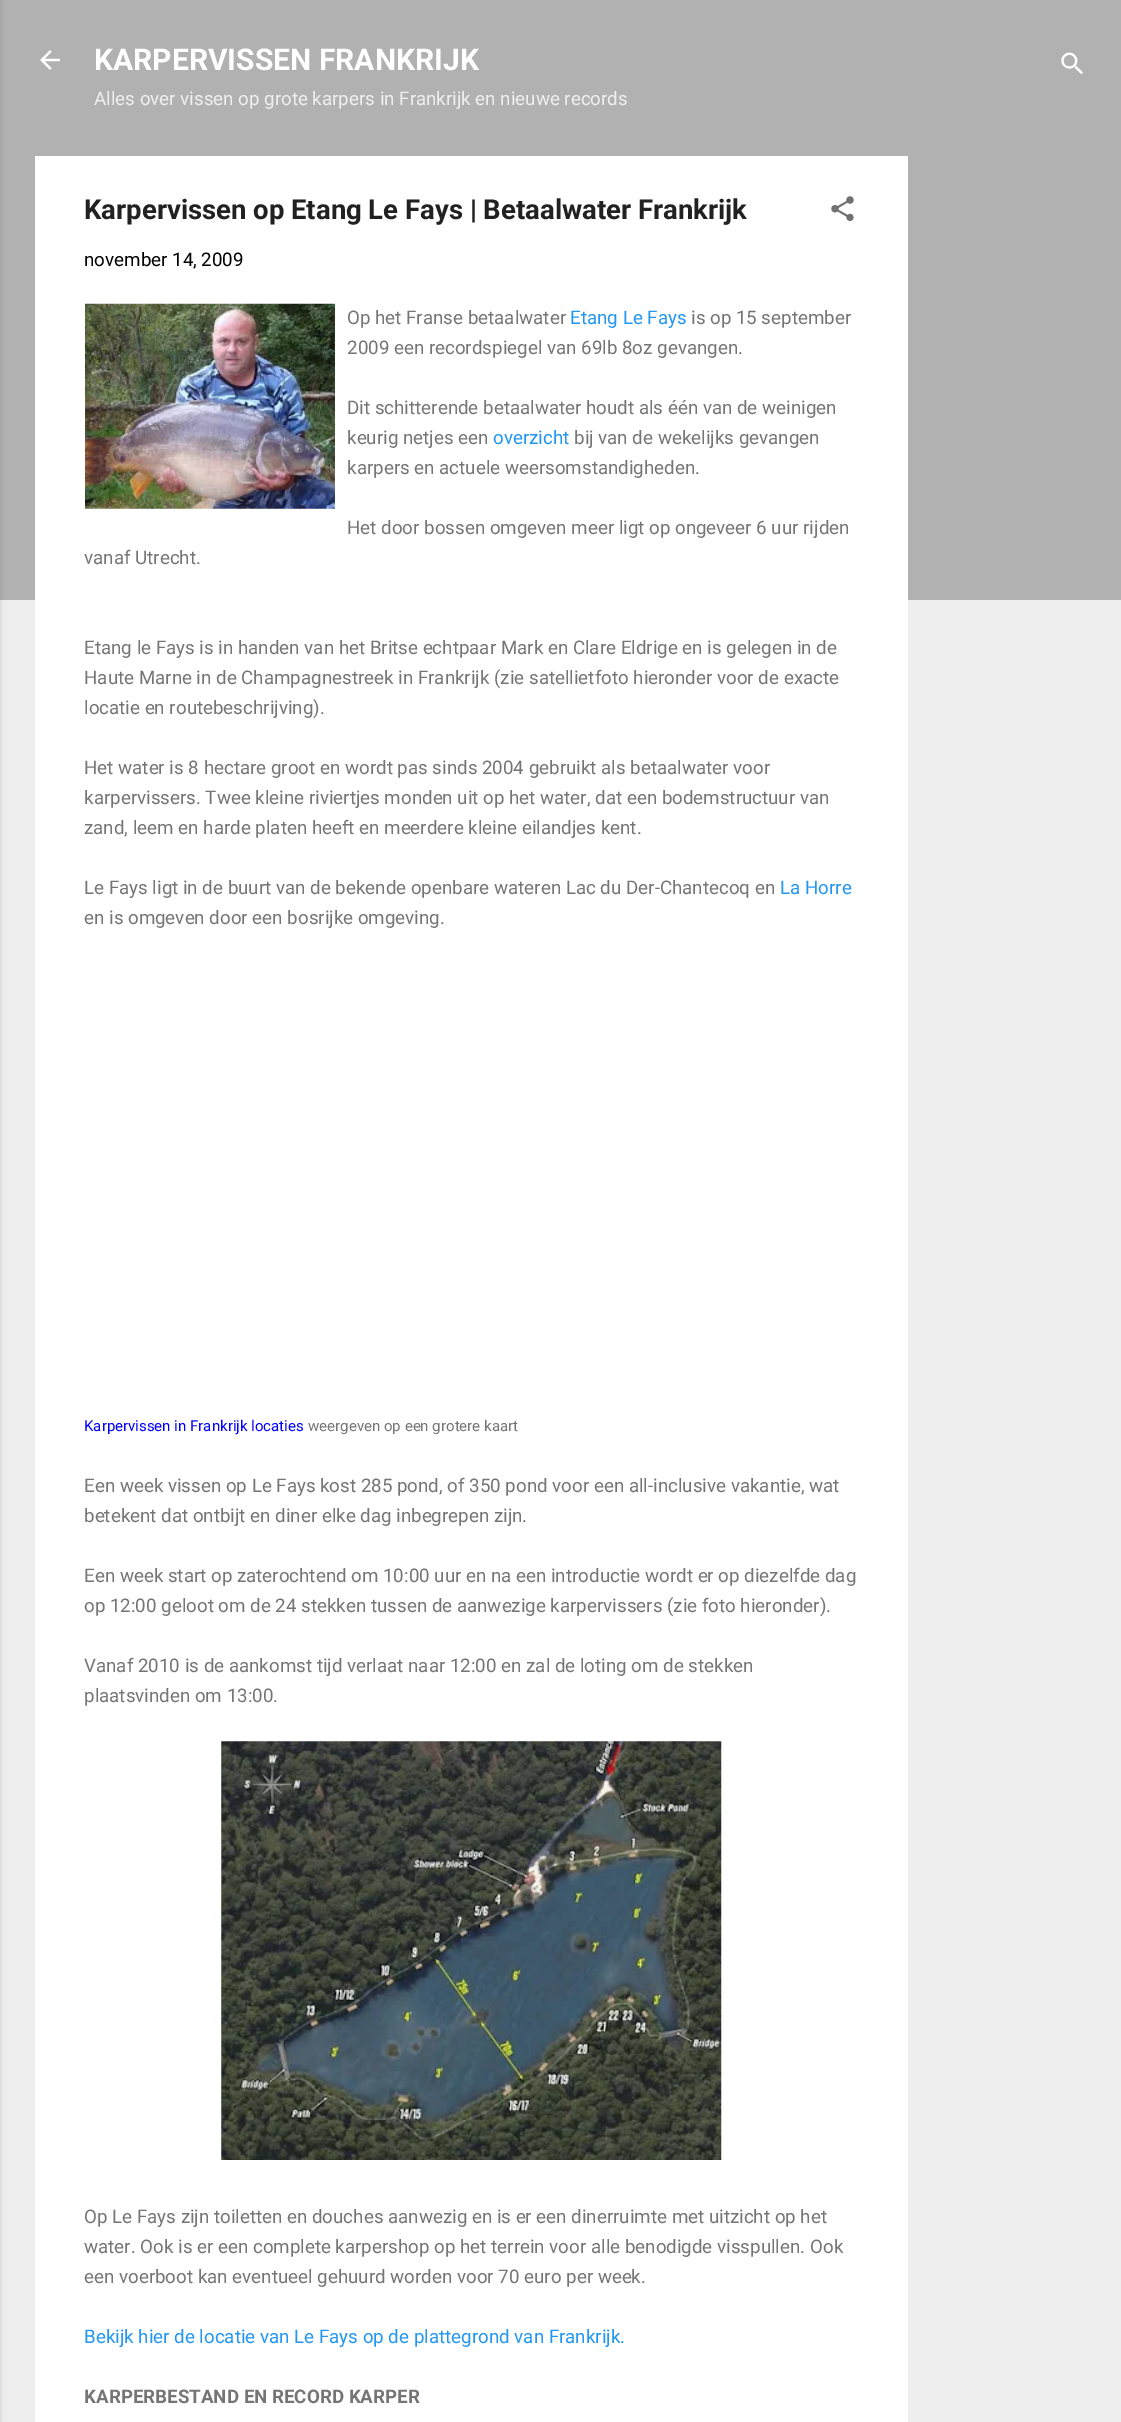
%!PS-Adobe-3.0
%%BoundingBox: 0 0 1121 2422
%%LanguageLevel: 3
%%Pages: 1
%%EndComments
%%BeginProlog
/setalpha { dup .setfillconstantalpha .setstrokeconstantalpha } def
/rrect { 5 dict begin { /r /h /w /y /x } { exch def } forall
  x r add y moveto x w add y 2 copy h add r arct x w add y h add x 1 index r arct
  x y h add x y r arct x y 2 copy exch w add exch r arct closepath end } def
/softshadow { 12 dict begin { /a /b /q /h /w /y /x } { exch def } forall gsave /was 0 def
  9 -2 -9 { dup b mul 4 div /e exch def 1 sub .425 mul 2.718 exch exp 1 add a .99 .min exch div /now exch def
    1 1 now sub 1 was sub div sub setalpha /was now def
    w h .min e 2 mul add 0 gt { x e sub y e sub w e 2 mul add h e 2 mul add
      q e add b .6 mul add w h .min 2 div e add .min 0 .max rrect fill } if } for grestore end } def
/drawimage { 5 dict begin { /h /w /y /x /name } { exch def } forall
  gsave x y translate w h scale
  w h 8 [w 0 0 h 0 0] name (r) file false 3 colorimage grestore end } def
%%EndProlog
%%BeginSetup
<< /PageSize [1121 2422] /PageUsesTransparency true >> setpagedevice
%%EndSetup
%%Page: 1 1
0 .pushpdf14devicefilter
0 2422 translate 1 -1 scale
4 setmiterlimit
0.933 setgray
0 0 1121 2422 rectfill
0.694 setgray
0 0 1121 600 rectfill
0 setgray
-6 1 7 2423 0 2 0.1 softshadow
(images/1.raw) 40 50 20 20 drawimage
(images/2.raw) 1061 52 22 23 drawimage
1 setgray
35 156 873 2266 rectfill
(images/3.raw) 831 196 23 26 drawimage
(images/4.raw) 85 303 250 206 drawimage
(images/5.raw) 221 1741 501 419 drawimage
/Roboto-Bold [30 0 0 -30 0 0] selectfont
94 70 moveto (KARPERVISSEN FRANKRIJK) show
/Roboto-Regular [18.75 0 0 -18.75 0 0] selectfont
0.937 setgray
94 105 moveto (Alles over vissen op grote karpers in Frankrijk en nieuwe records) show
/Roboto-Bold [27.5 0 0 -27.5 0 0] selectfont
0.129 setgray
84 219 moveto (Karpervissen op Etang Le Fays | Betaalwater Frankrijk) show
/Roboto-Regular [18.75 0 0 -18.75 0 0] selectfont
0 setgray
84 266 moveto (november 14, 2009) show
0.459 setgray
347 324 moveto (Op het Franse betaalwater) show
0.129 0.588 0.953 setrgbcolor
570 324 moveto (Etang Le Fays) show
0.459 setgray
691 324 moveto (is op 15 september) show
347 354 moveto (2009 een recordspiegel van 69lb 8oz gevangen.) show
347 414 moveto (Dit schitterende betaalwater houdt als één van de weinigen) show
347 444 moveto (keurig netjes een) show
0.129 0.588 0.953 setrgbcolor
493 444 moveto (overzicht) show
0.459 setgray
574 444 moveto (bij van de wekelijks gevangen) show
347 474 moveto (karpers en actuele weersomstandigheden.) show
347 534 moveto (Het door bossen omgeven meer ligt op ongeveer 6 uur rijden) show
84 564 moveto (vanaf Utrecht.) show
84 654 moveto (Etang le Fays is in handen van het Britse echtpaar Mark en Clare Eldrige en is gelegen in de) show
84 684 moveto (Haute Marne in de Champagnestreek in Frankrijk \(zie satellietfoto hieronder voor de exacte) show
84 714 moveto (locatie en routebeschrijving\).) show
84 774 moveto (Het water is 8 hectare groot en wordt pas sinds 2004 gebruikt als betaalwater voor) show
84 804 moveto (karpervissers. Twee kleine riviertjes monden uit op het water, dat een bodemstructuur van) show
84 834 moveto (zand, leem en harde platen heeft en meerdere kleine eilandjes kent.) show
84 894 moveto (Le Fays ligt in de buurt van de bekende openbare wateren Lac du Der-Chantecoq en) show
0.129 0.588 0.953 setrgbcolor
780 894 moveto (La Horre) show
0.459 setgray
84 924 moveto (en is omgeven door een bosrijke omgeving.) show
/Roboto-Regular [15 0 0 -15 0 0] selectfont
0 0 1 setrgbcolor
84 1431 moveto (Karpervissen in Frankrijk locaties) show
0.459 setgray
308 1431 moveto (weergeven op een grotere kaart) show
/Roboto-Regular [18.75 0 0 -18.75 0 0] selectfont
84 1492 moveto (Een week vissen op Le Fays kost 285 pond, of 350 pond voor een all-inclusive vakantie, wat) show
84 1522 moveto (betekent dat ontbijt en diner elke dag inbegrepen zijn.) show
84 1582 moveto (Een week start op zaterochtend om 10:00 uur en na een introductie wordt er op diezelfde dag) show
84 1612 moveto (op 12:00 geloot om de 24 stekken tussen de aanwezige karpervissers \(zie foto hieronder\).) show
84 1672 moveto (Vanaf 2010 is de aankomst tijd verlaat naar 12:00 en zal de loting om de stekken) show
84 1702 moveto (plaatsvinden om 13:00.) show
84 2223 moveto (Op Le Fays zijn toiletten en douches aanwezig en is er een dinerruimte met uitzicht op het) show
84 2253 moveto (water. Ook is er een complete karpershop op het terrein voor alle benodigde visspullen. Ook) show
84 2283 moveto (een voerboot kan eventueel gehuurd worden voor 70 euro per week.) show
0.129 0.588 0.953 setrgbcolor
84 2343 moveto (Bekijk hier de locatie van Le Fays op de plattegrond van Frankrijk.) show
/Roboto-Bold [18.75 0 0 -18.75 0 0] selectfont
0.459 setgray
84 2403 moveto (KARPERBESTAND EN RECORD KARPER) show
.poppdf14devicefilter showpage
%%EOF
